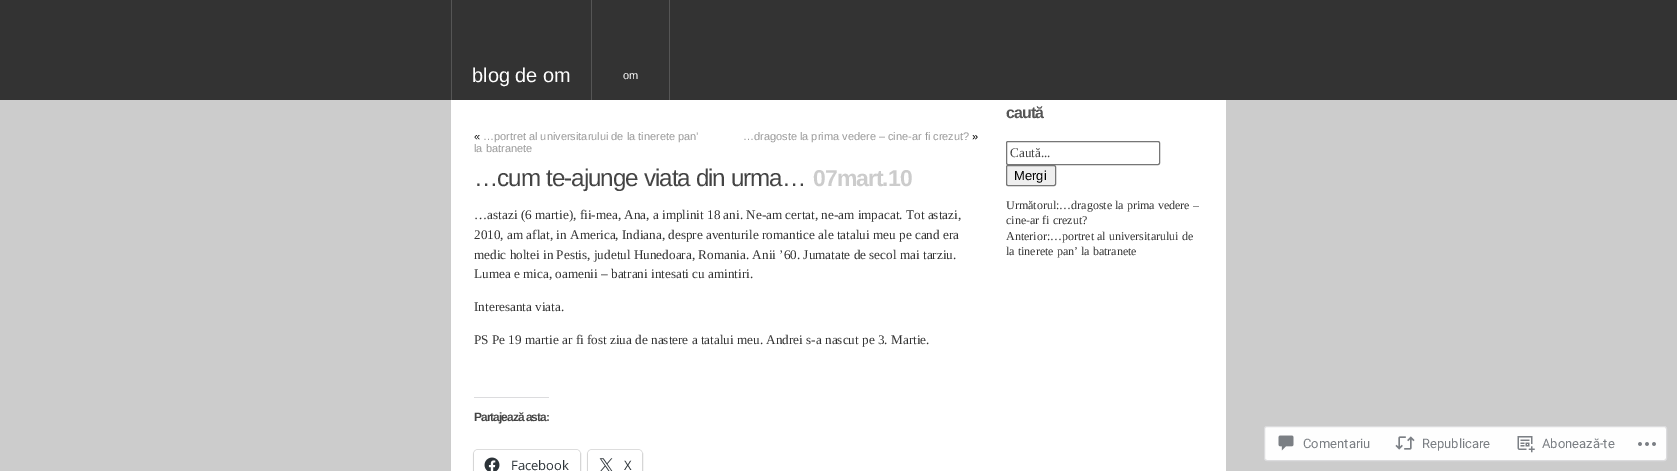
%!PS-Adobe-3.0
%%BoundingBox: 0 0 1677 471
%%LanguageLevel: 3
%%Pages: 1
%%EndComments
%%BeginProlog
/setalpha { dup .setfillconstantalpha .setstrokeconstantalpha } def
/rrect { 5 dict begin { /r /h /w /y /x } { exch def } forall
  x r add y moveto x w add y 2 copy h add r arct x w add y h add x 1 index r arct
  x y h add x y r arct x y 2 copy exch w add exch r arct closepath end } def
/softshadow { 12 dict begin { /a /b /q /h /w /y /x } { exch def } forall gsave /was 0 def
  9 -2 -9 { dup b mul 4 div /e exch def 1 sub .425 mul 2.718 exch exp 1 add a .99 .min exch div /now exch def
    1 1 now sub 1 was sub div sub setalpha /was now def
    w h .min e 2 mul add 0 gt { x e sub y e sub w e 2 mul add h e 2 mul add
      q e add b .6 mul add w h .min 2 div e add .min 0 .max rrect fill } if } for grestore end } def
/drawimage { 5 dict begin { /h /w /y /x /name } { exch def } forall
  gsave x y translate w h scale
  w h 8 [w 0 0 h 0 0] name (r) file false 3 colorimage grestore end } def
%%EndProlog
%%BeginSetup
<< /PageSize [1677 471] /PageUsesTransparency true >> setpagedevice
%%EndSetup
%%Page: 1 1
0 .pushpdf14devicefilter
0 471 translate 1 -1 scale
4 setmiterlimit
0.8 setgray
0 0 1677 471 rectfill
0.2 setgray
0 0 1677 100 rectfill
1 setgray
451 100 775 371 rectfill
0.333 setgray
451 0 1 100 rectfill
591 0 1 100 rectfill
669 0 1 100 rectfill
0.863 0.863 0.871 setrgbcolor
474 397 75 1 rectfill
0.878 setgray
473.5 449.5 107 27 4.5 rrect stroke
0 setgray
474 451 106 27 4 1 0.12 softshadow
1 setgray
474 450 106 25 4 rrect fill
(images/1.raw) 484 457 16 14 drawimage
0.878 setgray
587.5 449.5 55 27 4.5 rrect stroke
0 setgray
588 451 54 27 4 1 0.12 softshadow
1 setgray
588 450 54 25 4 rrect fill
(images/2.raw) 599 458 14 13 drawimage
0.463 setgray
1006.5 141.5 153 23 1.5 rrect stroke
0.937 setgray
1006.5 165.5 49 20 1.5 rrect gsave fill grestore
0.463 setgray
stroke
0.996 setgray
1264.5 426.5 402 34 2.5 rrect gsave fill grestore
0.863 0.863 0.871 setrgbcolor
stroke
(images/3.raw) 1278 435 16 16 drawimage
(images/4.raw) 1395 436 20 14 drawimage
(images/5.raw) 1517 436 18 17 drawimage
(images/6.raw) 1638 442 18 4 drawimage
/LiberationSans-Regular [20 0 0 -20 0 0] selectfont
1 setgray
472 82 moveto (blog de om) show
/LiberationSans-Regular [11 0 0 -11 0 0] selectfont
623 79 moveto (om) show
0 setgray
474 140 moveto («) show
0.6 setgray
483 140 moveto (…portret al universitarului de la tinerete pan’) show
474 152 moveto (la batranete) show
743 140 moveto (…dragoste la prima vedere – cine-ar fi crezut?) show
0 setgray
972 140 moveto (») show
/LiberationSans-Regular [24.25 0 0 -24.25 0 0] selectfont
0.267 setgray
474 186 moveto -1 0 (…cum te-ajunge viata din urma…) ashow
/LiberationSans-Bold [23 0 0 -23 0 0] selectfont
0.8 setgray
813 186 moveto -1 0 (07mart.10) ashow
/LiberationSerif-Regular [13.2 0 0 -13.2 0 0] selectfont
0.2 setgray
474 219 moveto (…astazi \(6 martie\), fii-mea, Ana, a implinit 18 ani. Ne-am certat, ne-am impacat. Tot astazi,) show
474 239 moveto (2010, am aflat, in America, Indiana, despre aventurile romantice ale tatalui meu pe cand era) show
474 259 moveto (medic holtei in Pestis, judetul Hunedoara, Romania. Anii ’60. Jumatate de secol mai tarziu.) show
474 278 moveto (Lumea e mica, oamenii – batrani intesati cu amintiri.) show
474 311 moveto (Interesanta viata.) show
474 344 moveto (PS Pe 19 martie ar fi fost ziua de nastere a tatalui meu. Andrei s-a nascut pe 3. Martie.) show
/LiberationSans-Bold [12 0 0 -12 0 0] selectfont
0.267 setgray
474 421 moveto -1 0 (Partajează asta:) ashow
/OpenSans-Regular [13 0 0 -13 0 0] selectfont
0.173 0.2 0.22 setrgbcolor
511 470 moveto (Facebook) show
624 470 moveto (X) show
/LiberationSans-Bold [16 0 0 -16 0 0] selectfont
0.333 setgray
1006 118 moveto -1 0 (caută) ashow
/LiberationSerif-Regular [13.2 0 0 -13.2 0 0] selectfont
0.267 setgray
1010 157 moveto (Caută...) show
/LiberationSans-Regular [13 0 0 -13 0 0] selectfont
0 setgray
1014 180 moveto (Mergi) show
/LiberationSerif-Regular [12 0 0 -12 0 0] selectfont
0.2 setgray
1006 209 moveto (Următorul:…dragoste la prima vedere –) show
1006 224 moveto (cine-ar fi crezut?) show
1006 240 moveto (Anterior:…portret al universitarului de) show
1006 255 moveto (la tinerete pan’ la batranete) show
/Roboto-Regular [13 0 0 -13 0 0] selectfont
0.478 0.494 0.514 setrgbcolor
1303 448 moveto (Comentariu) show
1422 448 moveto (Republicare) show
1542 448 moveto (Abonează-te) show
.poppdf14devicefilter showpage
%%EOF
